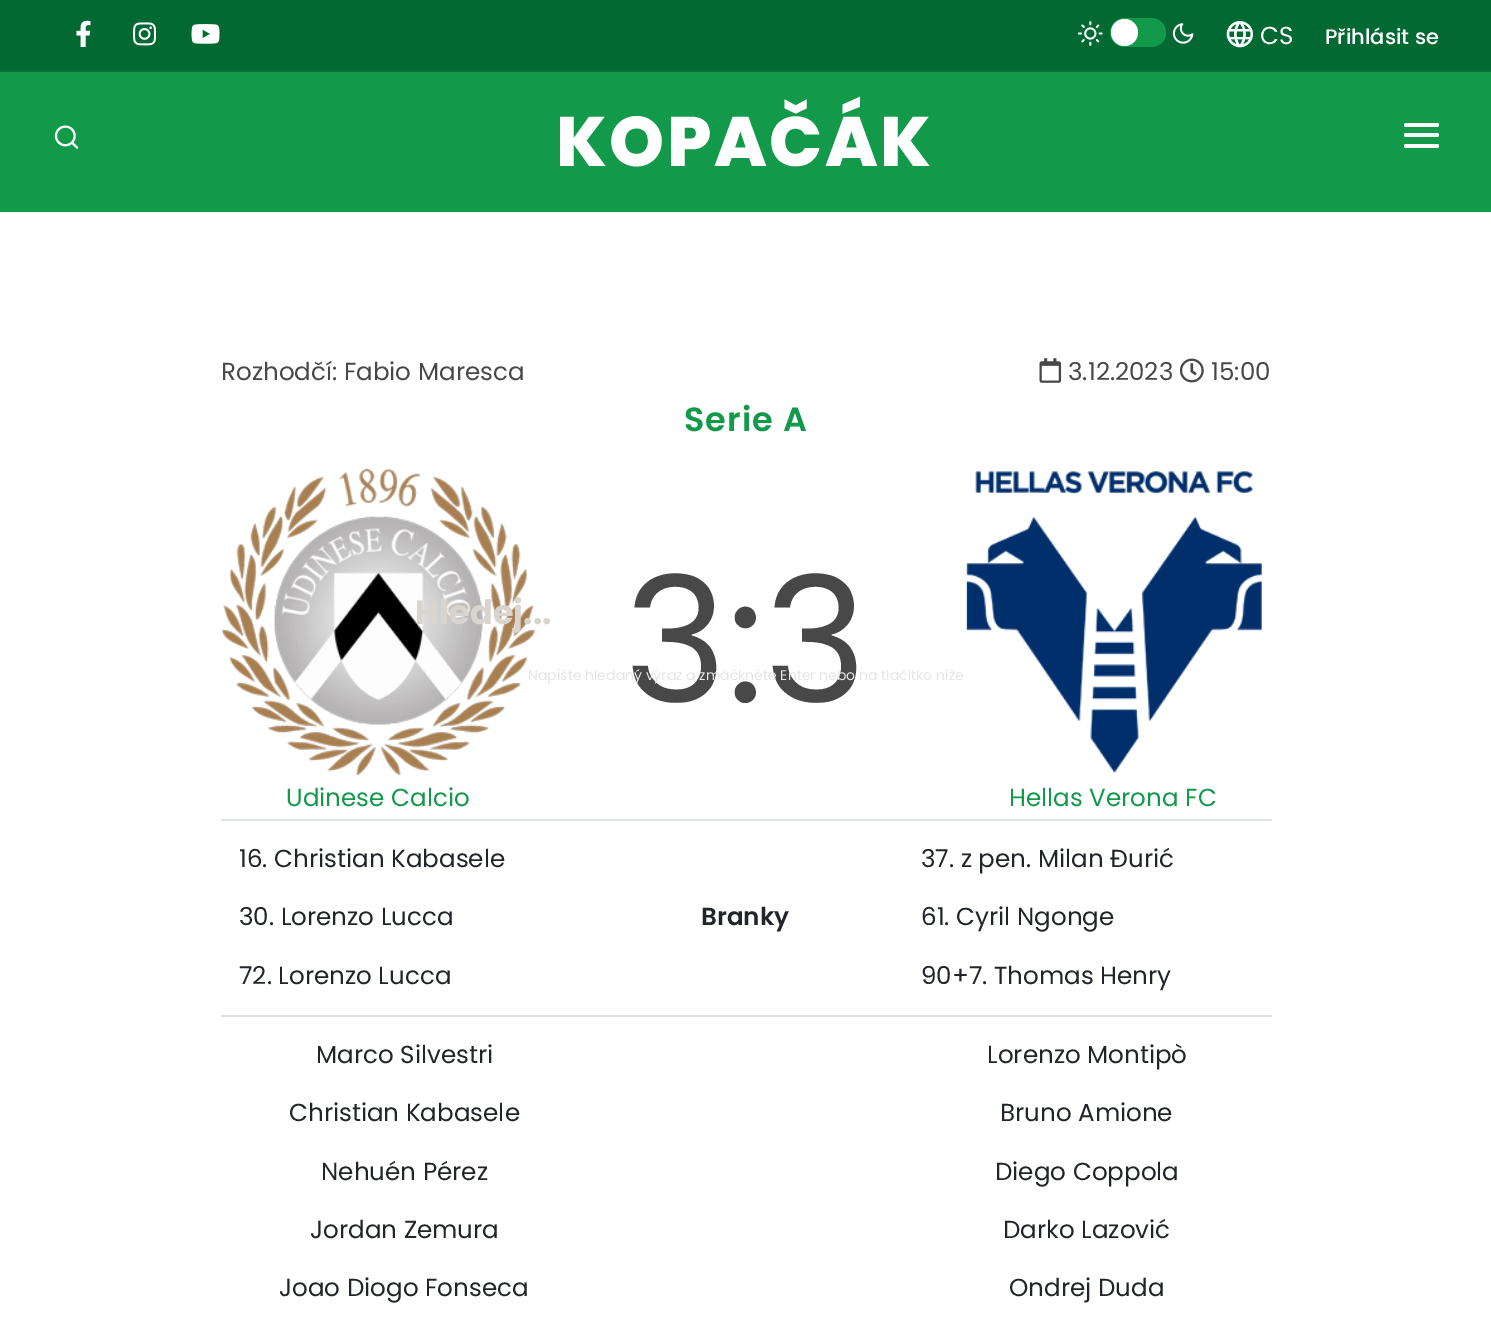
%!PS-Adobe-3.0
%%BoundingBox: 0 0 1491 1321
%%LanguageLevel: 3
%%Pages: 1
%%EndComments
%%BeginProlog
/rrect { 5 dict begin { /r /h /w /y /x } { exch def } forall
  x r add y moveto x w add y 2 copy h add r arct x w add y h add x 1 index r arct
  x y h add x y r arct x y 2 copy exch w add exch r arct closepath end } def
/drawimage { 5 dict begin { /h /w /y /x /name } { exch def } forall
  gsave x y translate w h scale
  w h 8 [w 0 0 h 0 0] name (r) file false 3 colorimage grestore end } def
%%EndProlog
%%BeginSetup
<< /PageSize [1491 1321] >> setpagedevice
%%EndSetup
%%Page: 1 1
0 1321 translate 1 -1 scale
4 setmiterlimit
1 setgray
0 0 1491 1321 rectfill
0.004 0.412 0.192 setrgbcolor
0 0 1491 70 rectfill
0.051 0.435 0.227 setrgbcolor
0 70 1491 2 rectfill
(images/1.raw) 76 20 15 27 drawimage
(images/2.raw) 133 22 23 24 drawimage
(images/3.raw) 191 24 29 20 drawimage
(images/4.raw) 1078 21 25 25 drawimage
0.071 0.6 0.29 setrgbcolor
1110 18 56 29 14.5 rrect fill
1 setgray
newpath 1124.5 32.5 13.5 0 360 arc closepath fill
(images/5.raw) 1172 23 22 21 drawimage
(images/6.raw) 1226 21 27 27 drawimage
0.071 0.6 0.29 setrgbcolor
0 72 1491 140 rectfill
(images/7.raw) 54 125 25 24 drawimage
1 setgray
1404 133 35 4 2 rrect fill
1404 123 35 4 2 rrect fill
1404 144 35 4 2 rrect fill
(images/8.raw) 1039 358 23 25 drawimage
(images/9.raw) 1179 358 25 25 drawimage
(images/10.raw) 221 468 315 308 drawimage
(images/11.raw) 966 471 296 302 drawimage
0.871 0.886 0.902 setrgbcolor
221 819 1051 2 rectfill
221 1015 1051 2 rectfill
/Poppins-Regular [24.6 0 0 -24.6 0 0] selectfont
1 setgray
1260 44 moveto (CS) show
/Poppins-Medium [21 0 0 -21 0 0] selectfont
1325 44 moveto (Přihlásit se) show
/Poppins-ExtraBold [70 0 0 -70 0 0] selectfont
556 166 moveto 2.5 0 (KOPAČÁK) ashow
/Poppins-Bold [33.5 0 0 -33.5 0 0] selectfont
0.855 0.831 0.808 setrgbcolor
415 624 moveto (Hledej...) show
/Poppins-Regular [24.6 0 0 -24.6 0 0] selectfont
0.282 setgray
221 380 moveto (Rozhodčí: Fabio Maresca) show
1068 380 moveto (3.12.2023) show
1211 380 moveto (15:00) show
/Poppins-SemiBold [33.5 0 0 -33.5 0 0] selectfont
0.071 0.6 0.29 setrgbcolor
684 431 moveto 1 0 (Serie A) ashow
/Poppins-Regular [175 0 0 -175 0 0] selectfont
0.282 setgray
624 702 moveto (3:3) show
/Poppins-Regular [14 0 0 -14 0 0] selectfont
0.902 setgray
528 680 moveto (Napište hledaný výraz a zmáčkněte Enter nebo na tlačítko níže) show
/Poppins-Regular [24.6 0 0 -24.6 0 0] selectfont
0.071 0.6 0.29 setrgbcolor
286 806 moveto (Udinese Calcio) show
1009 806 moveto (Hellas Verona FC) show
0.129 0.145 0.161 setrgbcolor
239 867 moveto (16. Christian Kabasele) show
239 925 moveto (30. Lorenzo Lucca) show
239 984 moveto (72. Lorenzo Lucca) show
/Poppins-SemiBold [24.6 0 0 -24.6 0 0] selectfont
701 925 moveto (Branky) show
/Poppins-Regular [24.6 0 0 -24.6 0 0] selectfont
921 867 moveto (37. z pen. Milan Đurić) show
921 925 moveto (61. Cyril Ngonge) show
921 984 moveto (90+7. Thomas Henry) show
316 1063 moveto (Marco Silvestri) show
289 1121 moveto (Christian Kabasele) show
321 1180 moveto (Nehuén Pérez) show
310 1238 moveto (Jordan Zemura) show
279 1296 moveto (Joao Diogo Fonseca) show
987 1063 moveto (Lorenzo Montipò) show
1000 1121 moveto (Bruno Amione) show
995 1180 moveto (Diego Coppola) show
1003 1238 moveto (Darko Lazović) show
1009 1296 moveto (Ondrej Duda) show
showpage
%%EOF
